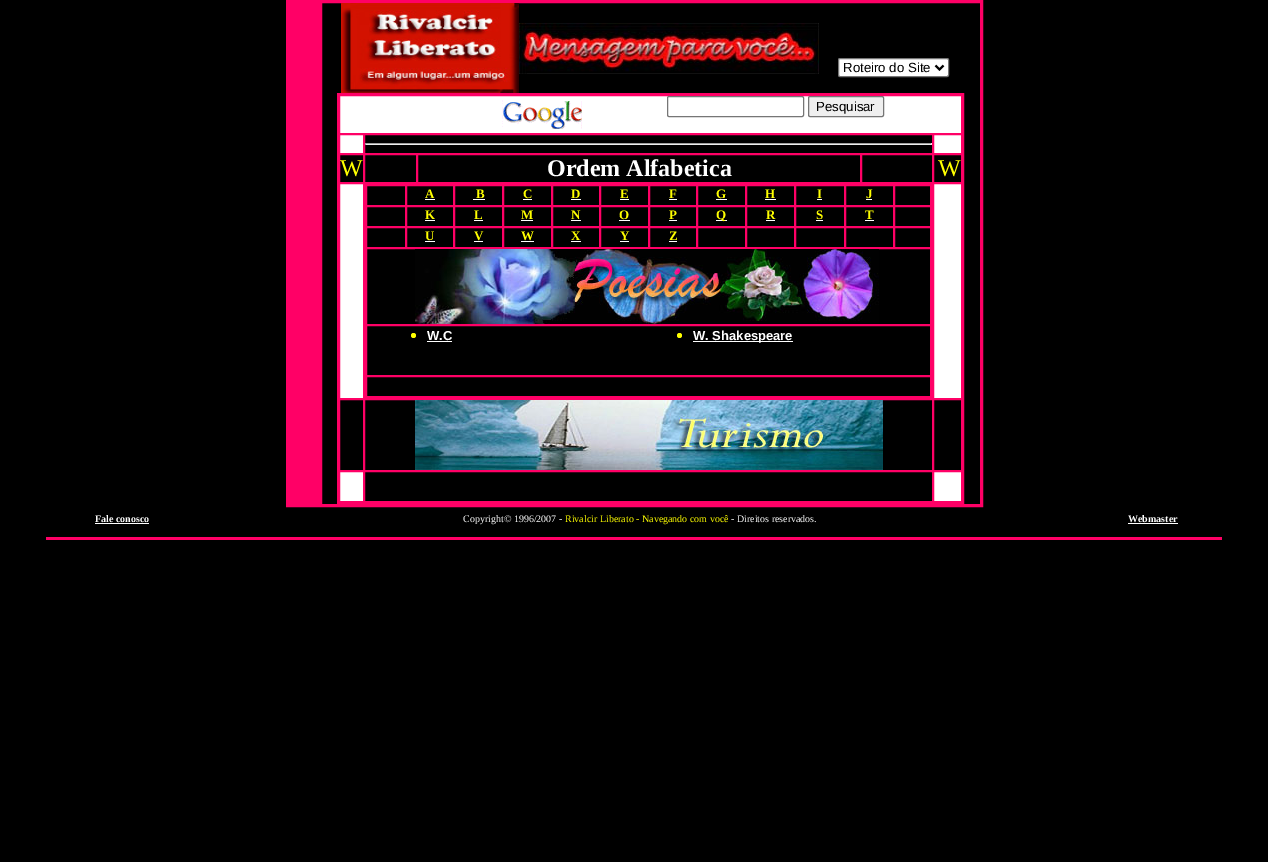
%!PS-Adobe-3.0
%%BoundingBox: 0 0 1268 862
%%LanguageLevel: 3
%%Pages: 1
%%EndComments
%%BeginProlog
/rrect { 5 dict begin { /r /h /w /y /x } { exch def } forall
  x r add y moveto x w add y 2 copy h add r arct x w add y h add x 1 index r arct
  x y h add x y r arct x y 2 copy exch w add exch r arct closepath end } def
/drawimage { 5 dict begin { /h /w /y /x /name } { exch def } forall
  gsave x y translate w h scale
  w h 8 [w 0 0 h 0 0] name (r) file false 3 colorimage grestore end } def
%%EndProlog
%%BeginSetup
<< /PageSize [1268 862] >> setpagedevice
%%EndSetup
%%Page: 1 1
0 862 translate 1 -1 scale
4 setmiterlimit
0 setgray
0 0 1268 862 rectfill
1 0 0.4 setrgbcolor
2 setlinewidth
287 1 695 505 rectstroke
288 2 33 503 rectfill
1 setlinewidth
321.5 2.5 659 502 rectstroke
(images/1.raw) 341 3 178 90 drawimage
(images/2.raw) 519 23 300 51 drawimage
1 setgray
838.5 58.5 110 18 1.5 rrect gsave fill grestore
0.463 setgray
stroke
0 setgray
2 setlinewidth
newpath 935.5 65.5 moveto 939.5 69.5 lineto 943.5 65.5 lineto stroke
1 0 0.4 setrgbcolor
338 94 625 409 rectstroke
1 setgray
newpath 339.5 95.5 moveto 961.5 95.5 lineto 961.5 133.5 lineto 339.5 133.5 lineto closepath gsave fill grestore
1 0 0.4 setrgbcolor
1 setlinewidth
stroke
(images/3.raw) 502 100 80 29 drawimage
0.463 setgray
667.5 96.5 136 20 1.5 rrect stroke
0.937 setgray
808.5 96.5 75 20 1.5 rrect gsave fill grestore
0.463 setgray
stroke
1 setgray
newpath 339.5 134.5 moveto 363.5 134.5 lineto 363.5 153.5 lineto 339.5 153.5 lineto closepath gsave fill grestore
1 0 0.4 setrgbcolor
stroke
364.5 134.5 568 19 rectstroke
0.624 setgray
365 143 567 1 rectfill
0.933 setgray
931 143 1 2 rectfill
365 144 567 1 rectfill
0.624 setgray
365 143 1 2 rectfill
1 setgray
newpath 933.5 134.5 moveto 961.5 134.5 lineto 961.5 153.5 lineto 933.5 153.5 lineto closepath gsave fill grestore
1 0 0.4 setrgbcolor
stroke
339.5 154.5 24 28 rectstroke
364.5 154.5 52 28 rectstroke
417.5 154.5 443 28 rectstroke
861.5 154.5 71 28 rectstroke
933.5 154.5 28 28 rectstroke
1 setgray
newpath 339.5 183.5 moveto 363.5 183.5 lineto 363.5 398.5 lineto 339.5 398.5 lineto closepath gsave fill grestore
1 0 0.4 setrgbcolor
stroke
364.5 183.5 568 215 rectstroke
365.5 184.5 566 213 rectstroke
366.5 185.5 39 20 rectstroke
406.5 185.5 47 20 rectstroke
1 setgray
425 199 10 1 rectfill
1 0 0.4 setrgbcolor
454.5 185.5 48 20 rectstroke
1 setgray
473 199 12 1 rectfill
1 0 0.4 setrgbcolor
503.5 185.5 48 20 rectstroke
1 setgray
523 199 9 1 rectfill
1 0 0.4 setrgbcolor
552.5 185.5 47 20 rectstroke
1 setgray
571 199 10 1 rectfill
1 0 0.4 setrgbcolor
600.5 185.5 48 20 rectstroke
1 setgray
620 199 9 1 rectfill
1 0 0.4 setrgbcolor
649.5 185.5 47 20 rectstroke
1 setgray
669 199 8 1 rectfill
1 0 0.4 setrgbcolor
697.5 185.5 48 20 rectstroke
1 setgray
716 199 11 1 rectfill
1 0 0.4 setrgbcolor
746.5 185.5 48 20 rectstroke
1 setgray
765 199 11 1 rectfill
1 0 0.4 setrgbcolor
795.5 185.5 49 20 rectstroke
1 setgray
817 199 5 1 rectfill
1 0 0.4 setrgbcolor
845.5 185.5 48 20 rectstroke
1 setgray
866 199 6 1 rectfill
1 0 0.4 setrgbcolor
894.5 185.5 36 20 rectstroke
366.5 206.5 39 20 rectstroke
406.5 206.5 47 20 rectstroke
1 setgray
425 220 10 1 rectfill
1 0 0.4 setrgbcolor
454.5 206.5 48 20 rectstroke
1 setgray
474 220 9 1 rectfill
1 0 0.4 setrgbcolor
503.5 206.5 48 20 rectstroke
1 setgray
521 220 12 1 rectfill
1 0 0.4 setrgbcolor
552.5 206.5 47 20 rectstroke
1 setgray
571 220 10 1 rectfill
1 0 0.4 setrgbcolor
600.5 206.5 48 20 rectstroke
1 setgray
619 220 11 1 rectfill
1 0 0.4 setrgbcolor
649.5 206.5 47 20 rectstroke
1 setgray
669 220 8 1 rectfill
1 0 0.4 setrgbcolor
697.5 206.5 48 20 rectstroke
1 setgray
716 220 11 1 rectfill
1 0 0.4 setrgbcolor
746.5 206.5 48 20 rectstroke
1 setgray
766 220 9 1 rectfill
1 0 0.4 setrgbcolor
795.5 206.5 49 20 rectstroke
1 setgray
816 220 7 1 rectfill
1 0 0.4 setrgbcolor
845.5 206.5 48 20 rectstroke
1 setgray
865 220 9 1 rectfill
1 0 0.4 setrgbcolor
894.5 206.5 36 20 rectstroke
366.5 227.5 39 20 rectstroke
406.5 227.5 47 20 rectstroke
1 setgray
425 241 10 1 rectfill
1 0 0.4 setrgbcolor
454.5 227.5 48 20 rectstroke
1 setgray
474 241 9 1 rectfill
1 0 0.4 setrgbcolor
503.5 227.5 48 20 rectstroke
1 setgray
521 241 13 1 rectfill
1 0 0.4 setrgbcolor
552.5 227.5 47 20 rectstroke
1 setgray
571 241 10 1 rectfill
1 0 0.4 setrgbcolor
600.5 227.5 48 20 rectstroke
1 setgray
620 241 9 1 rectfill
1 0 0.4 setrgbcolor
649.5 227.5 47 20 rectstroke
1 setgray
669 241 8 1 rectfill
1 0 0.4 setrgbcolor
697.5 227.5 48 20 rectstroke
746.5 227.5 48 20 rectstroke
795.5 227.5 49 20 rectstroke
845.5 227.5 48 20 rectstroke
894.5 227.5 36 20 rectstroke
366.5 248.5 564 76 rectstroke
(images/4.raw) 415 249 464 75 drawimage
366.5 325.5 564 50 rectstroke
1 1 0 setrgbcolor
newpath 413.5 335.5 2.5 0 360 arc closepath fill
1 setgray
427 341 25 1 rectfill
1 1 0 setrgbcolor
newpath 679.5 335.5 2.5 0 360 arc closepath fill
1 setgray
693 341 100 1 rectfill
1 0 0.4 setrgbcolor
366.5 376.5 564 20 rectstroke
1 setgray
newpath 933.5 183.5 moveto 961.5 183.5 lineto 961.5 398.5 lineto 933.5 398.5 lineto closepath gsave fill grestore
1 0 0.4 setrgbcolor
stroke
339.5 399.5 24 71 rectstroke
364.5 399.5 568 71 rectstroke
(images/5.raw) 415 400 468 70 drawimage
933.5 399.5 28 71 rectstroke
1 setgray
newpath 339.5 471.5 moveto 363.5 471.5 lineto 363.5 501.5 lineto 339.5 501.5 lineto closepath gsave fill grestore
1 0 0.4 setrgbcolor
stroke
364.5 471.5 568 30 rectstroke
1 setgray
newpath 933.5 471.5 moveto 961.5 471.5 lineto 961.5 501.5 lineto 933.5 501.5 lineto closepath gsave fill grestore
1 0 0.4 setrgbcolor
stroke
1 setgray
95 523 54 1 rectfill
1128 523 50 1 rectfill
1 0 0.4 setrgbcolor
46 537 1176 3 rectfill
/LiberationSans-Regular [13.25 0 0 -13.25 0 0] selectfont
0 setgray
843 72 moveto (Roteiro do Site) show
816 111 moveto (Pesquisar) show
/LiberationSerif-Regular [24 0 0 -24 0 0] selectfont
1 1 0 setrgbcolor
340 176 moveto (W) show
/LiberationSerif-Bold [24 0 0 -24 0 0] selectfont
1 setgray
547 176 moveto (Ordem Alfabetica) show
/LiberationSerif-Regular [24 0 0 -24 0 0] selectfont
1 1 0 setrgbcolor
938 176 moveto (W) show
/LiberationSerif-Bold [13 0 0 -13 0 0] selectfont
425 198 moveto (A) show
476 198 moveto (B) show
523 198 moveto (C) show
571 198 moveto (D) show
620 198 moveto (E) show
669 198 moveto (F) show
716 198 moveto (G) show
765 198 moveto (H) show
817 198 moveto (I) show
866 198 moveto (J) show
425 219 moveto (K) show
474 219 moveto (L) show
521 219 moveto (M) show
571 219 moveto (N) show
619 219 moveto (O) show
669 219 moveto (P) show
716 219 moveto (Q) show
766 219 moveto (R) show
816 219 moveto (S) show
865 219 moveto (T) show
425 240 moveto (U) show
474 240 moveto (V) show
521 240 moveto (W) show
571 240 moveto (X) show
620 240 moveto (Y) show
669 240 moveto (Z) show
/LiberationSans-Bold [13 0 0 -13 0 0] selectfont
1 setgray
427 340 moveto (W.C) show
693 340 moveto (W. Shakespeare) show
/LiberationSerif-Bold [10 0 0 -10 0 0] selectfont
95 522 moveto (Fale conosco) show
/LiberationSerif-Regular [10 0 0 -10 0 0] selectfont
463 522 moveto (Copyright© 1996/2007 -) show
1 1 0 setrgbcolor
565 522 moveto (Rivalcir Liberato - Navegando com você) show
1 setgray
731 522 moveto (- Direitos reservados.) show
/LiberationSerif-Bold [10 0 0 -10 0 0] selectfont
1128 522 moveto (Webmaster) show
showpage
%%EOF
